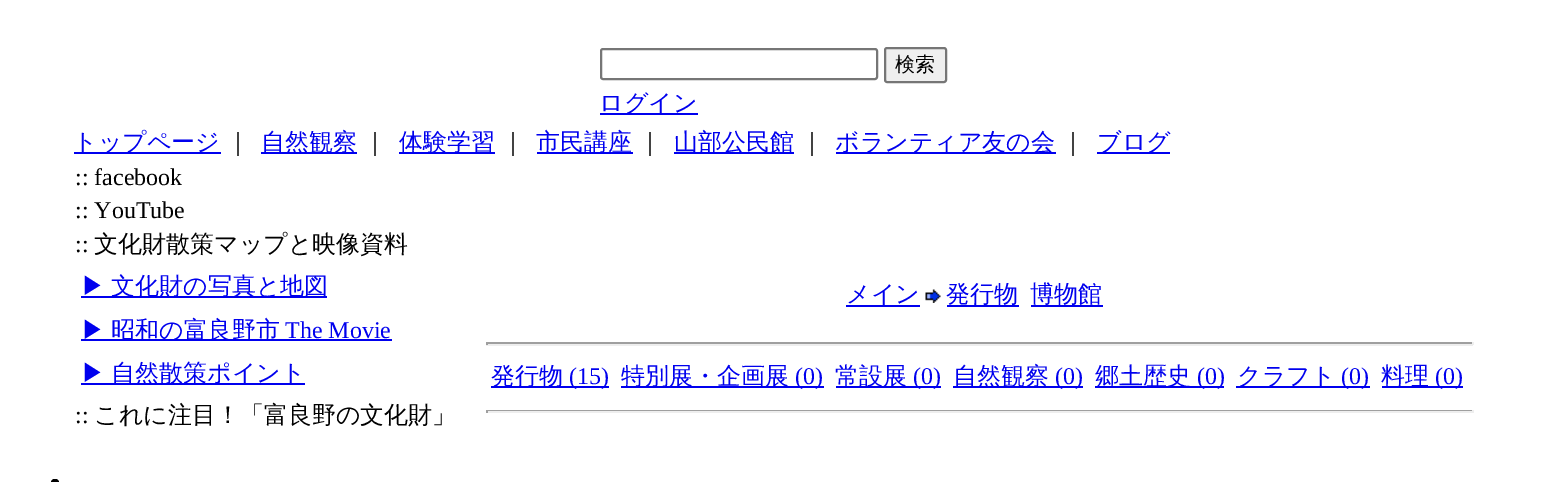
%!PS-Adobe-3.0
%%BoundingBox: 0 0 1546 482
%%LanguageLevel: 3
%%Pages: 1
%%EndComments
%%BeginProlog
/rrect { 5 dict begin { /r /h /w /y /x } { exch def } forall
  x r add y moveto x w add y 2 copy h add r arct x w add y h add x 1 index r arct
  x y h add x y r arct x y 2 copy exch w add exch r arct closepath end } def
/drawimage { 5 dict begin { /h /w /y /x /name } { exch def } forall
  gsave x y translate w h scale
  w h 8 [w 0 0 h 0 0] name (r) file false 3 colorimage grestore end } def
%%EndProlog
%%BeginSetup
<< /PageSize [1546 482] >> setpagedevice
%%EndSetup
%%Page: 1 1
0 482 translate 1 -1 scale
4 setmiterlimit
1 setgray
0 0 1546 482 rectfill
0.463 setgray
2 setlinewidth
601 49 276 30 2 rrect stroke
0.937 setgray
885 48 61 34 2 rrect gsave fill grestore
0.463 setgray
stroke
0 0 0.933 setrgbcolor
600 113 98 2 rectfill
74 152 147 2 rectfill
261 152 96 2 rectfill
399 152 96 2 rectfill
537 152 96 2 rectfill
674 152 120 2 rectfill
836 152 220 2 rectfill
1097 152 73 2 rectfill
81 296 246 2 rectfill
81 339 311 2 rectfill
81 383 224 2 rectfill
0 setgray
51 479 8 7 3.5 rrect fill
0 0 0.933 setrgbcolor
846 305 74 2 rectfill
(images/1.raw) 925 289 16 14 drawimage
947 305 72 2 rectfill
1031 305 72 2 rectfill
0.624 setgray
486 342 987 2 rectfill
0.933 setgray
1472 342 2 3 rectfill
486 344 987 2 rectfill
0.624 setgray
486 342 2 3 rectfill
0 0 0.933 setrgbcolor
491 386 118 2 rectfill
621 386 203 2 rectfill
836 386 105 2 rectfill
953 386 130 2 rectfill
1095 386 129 2 rectfill
1236 386 134 2 rectfill
1382 386 81 2 rectfill
0.624 setgray
486 410 987 1 rectfill
0.933 setgray
1472 410 2 3 rectfill
486 411 987 2 rectfill
0.624 setgray
486 410 2 3 rectfill
/WenQuanYiZenHei-Medium [20 0 0 -20 0 0] selectfont
0 setgray
895 71 moveto (検索) show
/WenQuanYiZenHei-Medium [24 0 0 -24 0 0] selectfont
0 0 0.933 setrgbcolor
599 111 moveto (ログイン) show
73 150 moveto (トップページ) show
0 setgray
226 150 moveto (｜) show
0 0 0.933 setrgbcolor
261 150 moveto (自然観察) show
0 setgray
363 150 moveto (｜) show
0 0 0.933 setrgbcolor
399 150 moveto (体験学習) show
0 setgray
501 150 moveto (｜) show
0 0 0.933 setrgbcolor
536 150 moveto (市民講座) show
0 setgray
638 150 moveto (｜) show
0 0 0.933 setrgbcolor
674 150 moveto (山部公民館) show
0 setgray
800 150 moveto (｜) show
0 0 0.933 setrgbcolor
835 150 moveto (ボランティア友の会) show
0 setgray
1061 150 moveto (｜) show
0 0 0.933 setrgbcolor
1097 150 moveto (ブログ) show
/LiberationSerif-Regular [24 0 0 -24 0 0] selectfont
0 setgray
75 185 moveto (:: facebook) show
75 218 moveto (:: YouTube) show
75 252 moveto (::) show
/WenQuanYiZenHei-Medium [24 0 0 -24 0 0] selectfont
94 252 moveto (文化財散策マップと映像資料) show
0 0 0.933 setrgbcolor
81 294 moveto -1 0 32 (▶ 文化財の写真と地図) widthshow
81 338 moveto (▶) show
111 338 moveto (昭和の富良野市) show
/LiberationSerif-Regular [24 0 0 -24 0 0] selectfont
285 338 moveto (The Movie) show
/WenQuanYiZenHei-Medium [24 0 0 -24 0 0] selectfont
81 381 moveto -1 0 32 (▶ 自然散策ポイント) widthshow
/LiberationSerif-Regular [24 0 0 -24 0 0] selectfont
0 setgray
75 423 moveto (::) show
/WenQuanYiZenHei-Medium [24 0 0 -24 0 0] selectfont
94 423 moveto (これに注目！「富良野の文化財」) show
0 0 0.933 setrgbcolor
846 302 moveto (メイン) show
946 302 moveto (発行物) show
1030 302 moveto (博物館) show
491 384 moveto (発行物) show
/LiberationSerif-Regular [24 0 0 -24 0 0] selectfont
569 384 moveto (\(15\)) show
/WenQuanYiZenHei-Medium [24 0 0 -24 0 0] selectfont
621 384 moveto (特別展・企画展) show
/LiberationSerif-Regular [24 0 0 -24 0 0] selectfont
795 384 moveto (\(0\)) show
/WenQuanYiZenHei-Medium [24 0 0 -24 0 0] selectfont
835 384 moveto (常設展) show
/LiberationSerif-Regular [24 0 0 -24 0 0] selectfont
913 384 moveto (\(0\)) show
/WenQuanYiZenHei-Medium [24 0 0 -24 0 0] selectfont
953 384 moveto (自然観察) show
/LiberationSerif-Regular [24 0 0 -24 0 0] selectfont
1055 384 moveto (\(0\)) show
/WenQuanYiZenHei-Medium [24 0 0 -24 0 0] selectfont
1095 384 moveto (郷土歴史) show
/LiberationSerif-Regular [24 0 0 -24 0 0] selectfont
1197 384 moveto (\(0\)) show
/WenQuanYiZenHei-Medium [24 0 0 -24 0 0] selectfont
1237 384 moveto (クラフト) show
/LiberationSerif-Regular [24 0 0 -24 0 0] selectfont
1341 384 moveto (\(0\)) show
/WenQuanYiZenHei-Medium [24 0 0 -24 0 0] selectfont
1381 384 moveto (料理) show
/LiberationSerif-Regular [24 0 0 -24 0 0] selectfont
1435 384 moveto (\(0\)) show
showpage
%%EOF
